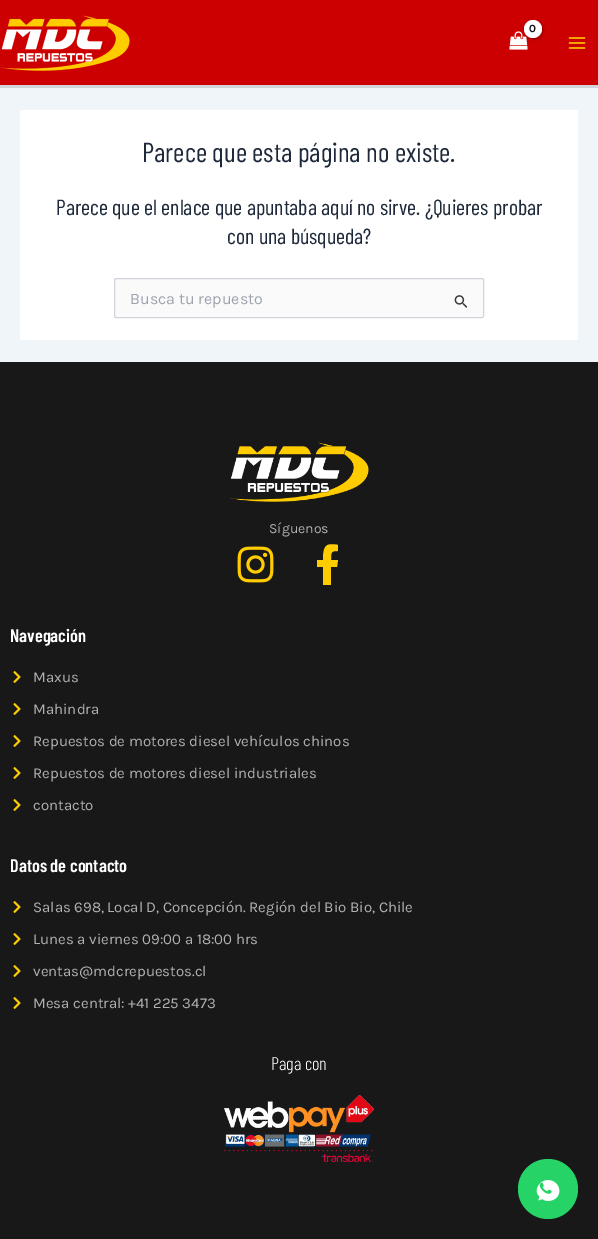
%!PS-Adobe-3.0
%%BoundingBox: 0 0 598 1239
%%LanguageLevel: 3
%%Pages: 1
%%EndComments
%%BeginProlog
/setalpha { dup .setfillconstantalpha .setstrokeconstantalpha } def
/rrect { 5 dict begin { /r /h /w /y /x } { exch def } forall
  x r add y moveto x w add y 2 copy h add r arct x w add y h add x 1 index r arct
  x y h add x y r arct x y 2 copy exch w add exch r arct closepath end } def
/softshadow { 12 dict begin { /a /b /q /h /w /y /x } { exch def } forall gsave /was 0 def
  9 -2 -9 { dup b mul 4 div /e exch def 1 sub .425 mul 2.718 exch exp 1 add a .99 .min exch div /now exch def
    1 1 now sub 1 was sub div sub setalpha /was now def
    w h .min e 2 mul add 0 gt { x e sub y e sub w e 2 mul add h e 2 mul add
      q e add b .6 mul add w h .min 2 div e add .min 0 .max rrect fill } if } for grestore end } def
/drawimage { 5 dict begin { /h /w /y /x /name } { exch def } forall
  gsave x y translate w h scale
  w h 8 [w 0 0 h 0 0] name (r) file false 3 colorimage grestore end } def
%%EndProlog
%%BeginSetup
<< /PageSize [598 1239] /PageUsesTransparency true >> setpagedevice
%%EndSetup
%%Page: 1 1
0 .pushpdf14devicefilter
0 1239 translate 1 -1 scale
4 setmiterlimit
0.941 0.961 0.98 setrgbcolor
0 0 598 1239 rectfill
0.8 0 0 setrgbcolor
0 0 598 85 rectfill
0.82 0.835 0.859 setrgbcolor
0 85 598 3 rectfill
(images/1.raw) 1 15 129 56 drawimage
(images/2.raw) 509 31 19 19 drawimage
0 setgray
525 21 18 18 9 1.5 0.3 softshadow
0.996 setgray
newpath 533 29 9 0 360 arc closepath fill
(images/3.raw) 568 37 18 12 drawimage
1 setgray
20 110 558 230 rectfill
0.98 setgray
114.5 278.5 369 39 1.5 rrect gsave fill grestore
0.82 0.835 0.859 setrgbcolor
stroke
(images/4.raw) 454 295 13 13 drawimage
0.094 setgray
0 362 598 877 rectfill
(images/5.raw) 230 442 139 60 drawimage
(images/6.raw) 237 546 37 37 drawimage
1 0.8 0 setrgbcolor
newpath 337 567 moveto 338 560 lineto 331 560 lineto 331 552 331 551 338 551 curveto 338 545 lineto 325 542 323 547 323 560 curveto 317 560 lineto 317 567 lineto 323 567 lineto 323 585 lineto 331 585 lineto 331 567 lineto closepath fill
(images/7.raw) 13 671 8 12 drawimage
(images/7.raw) 13 703 8 12 drawimage
(images/7.raw) 13 735 8 12 drawimage
(images/7.raw) 13 767 8 12 drawimage
(images/7.raw) 13 799 8 12 drawimage
(images/7.raw) 13 901 8 12 drawimage
(images/7.raw) 13 933 8 12 drawimage
(images/7.raw) 13 965 8 12 drawimage
(images/7.raw) 13 997 8 12 drawimage
(images/8.raw) 224 1095 150 67 drawimage
0.145 0.827 0.4 setrgbcolor
newpath 548 1189 30 0 360 arc closepath fill
(images/9.raw) 536 1180 24 21 drawimage
/Karla-Bold [11 0 0 -11 0 0] selectfont
0.067 setgray
529 32 moveto (0) show
/BarlowCondensed-Regular [27.4 0 0 -27.4 0 0] selectfont
0.118 0.161 0.231 setrgbcolor
142 162 moveto (Parece que esta página no existe.) show
/BarlowCondensed-Regular [21.9 0 0 -21.9 0 0] selectfont
56 215 moveto (Parece que el enlace que apuntaba aquí no sirve. ¿Quieres probar) show
227 244 moveto (con una búsqueda?) show
/Karla-Regular [16 0 0 -16 0 0] selectfont
0.612 0.639 0.686 setrgbcolor
130 304 moveto (Busca tu repuesto) show
/Karla-Regular [14 0 0 -14 0 0] selectfont
0.694 setgray
269 533 moveto (Síguenos) show
/BarlowCondensed-SemiBold [18.25 0 0 -18.25 0 0] selectfont
1 setgray
10 642 moveto (Navegación) show
/Karla-Regular [15 0 0 -15 0 0] selectfont
0.694 setgray
33 682 moveto (Maxus) show
33 714 moveto (Mahindra) show
33 746 moveto (Repuestos de motores diesel vehículos chinos) show
33 778 moveto (Repuestos de motores diesel industriales) show
33 810 moveto (contacto) show
/BarlowCondensed-SemiBold [18.25 0 0 -18.25 0 0] selectfont
1 setgray
10 872 moveto (Datos de contacto) show
/Karla-Regular [15 0 0 -15 0 0] selectfont
0.694 setgray
33 912 moveto (Salas 698, Local D, Concepción. Región del Bio Bio, Chile) show
33 944 moveto (Lunes a viernes 09:00 a 18:00 hrs) show
33 976 moveto (ventas@mdcrepuestos.cl) show
33 1008 moveto (Mesa central: +41 225 3473) show
/BarlowCondensed-Light [18.25 0 0 -18.25 0 0] selectfont
1 setgray
271 1070 moveto (Paga con) show
.poppdf14devicefilter showpage
%%EOF
